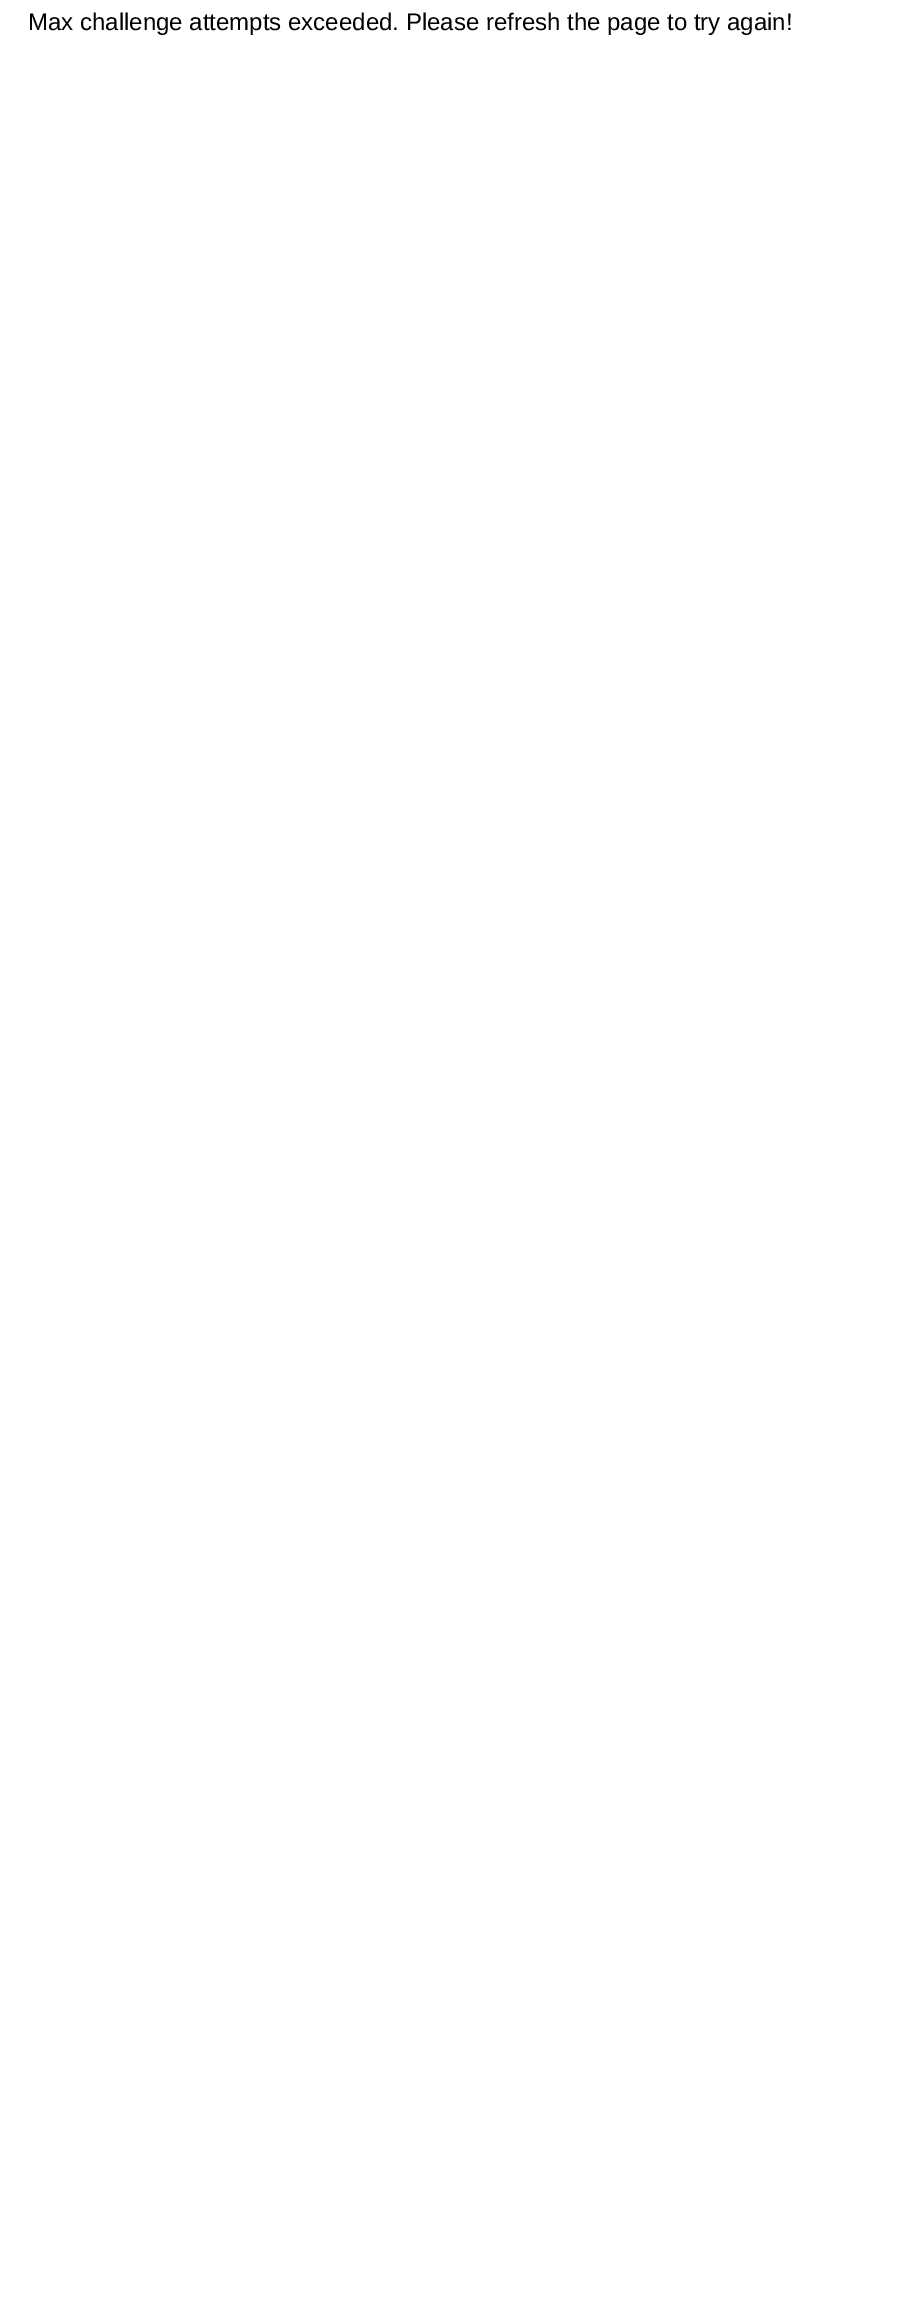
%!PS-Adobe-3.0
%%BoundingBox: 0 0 901 2318
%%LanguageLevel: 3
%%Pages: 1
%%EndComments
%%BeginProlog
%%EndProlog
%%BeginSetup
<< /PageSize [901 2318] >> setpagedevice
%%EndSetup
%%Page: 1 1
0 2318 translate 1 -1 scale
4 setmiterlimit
1 setgray
0 0 901 2318 rectfill
/LiberationSans-Regular [24 0 0 -24 0 0] selectfont
0 setgray
28 30 moveto (Max challenge attempts exceeded. Please refresh the page to try again!) show
showpage
%%EOF
